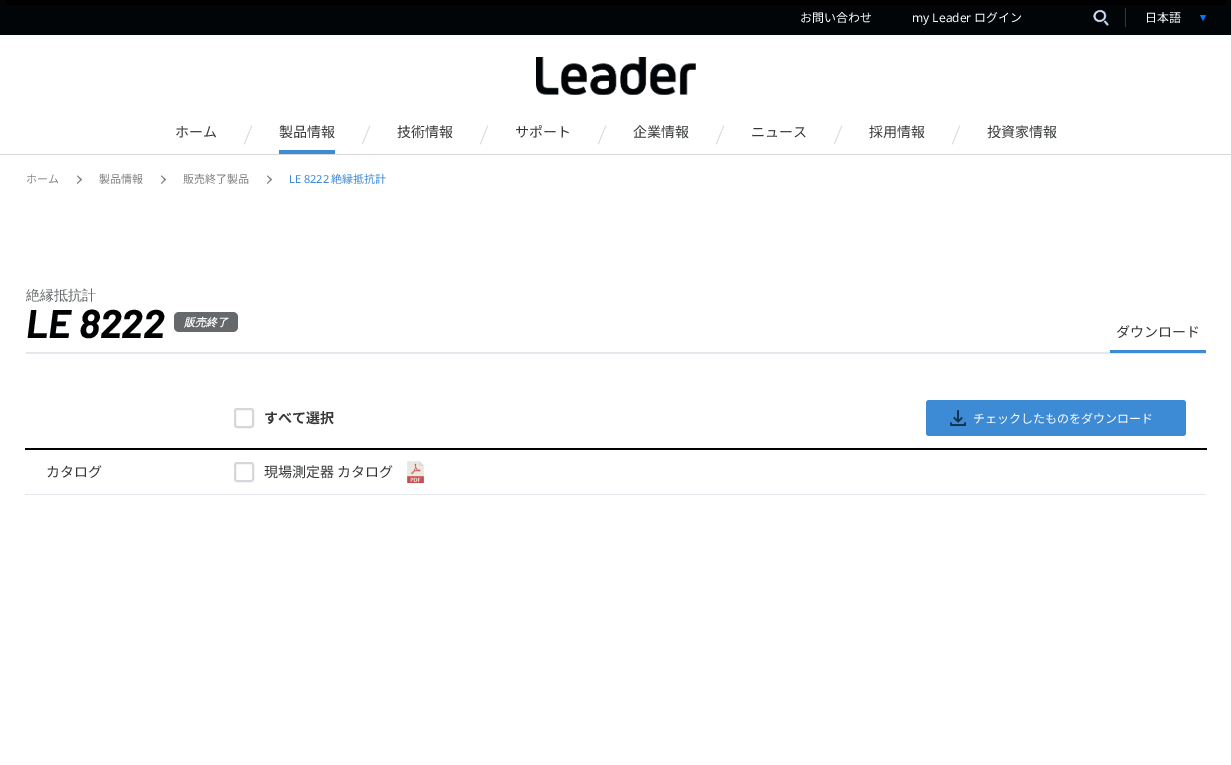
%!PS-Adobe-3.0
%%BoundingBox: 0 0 1231 765
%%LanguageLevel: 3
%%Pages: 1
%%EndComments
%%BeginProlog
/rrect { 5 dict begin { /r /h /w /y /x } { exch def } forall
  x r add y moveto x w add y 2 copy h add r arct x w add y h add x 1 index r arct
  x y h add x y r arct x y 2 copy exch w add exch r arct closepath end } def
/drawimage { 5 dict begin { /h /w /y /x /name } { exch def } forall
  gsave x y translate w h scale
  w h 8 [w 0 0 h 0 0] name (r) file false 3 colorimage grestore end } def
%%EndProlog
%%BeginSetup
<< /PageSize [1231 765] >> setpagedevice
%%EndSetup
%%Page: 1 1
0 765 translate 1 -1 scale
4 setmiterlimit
1 setgray
0 0 1231 765 rectfill
0.008 0.02 0.027 setrgbcolor
0 0 1231 35 rectfill
0 setgray
6 0 1220 5 rectfill
(images/1.raw) 1093 9 16 17 drawimage
0.208 0.216 0.22 setrgbcolor
1125 8 1 19 rectfill
0 0.482 1 setrgbcolor
newpath 1200 15 moveto 1206 15 lineto 1203 21 lineto closepath fill
(images/2.raw) 536 57 160 38 drawimage
0.839 0.843 0.847 setrgbcolor
newpath 251.5 125.5 moveto 252 126 lineto 244.5 144.5 lineto 244 144 lineto closepath fill
0.243 0.545 0.835 setrgbcolor
279 150 56 4 rectfill
0.839 0.843 0.847 setrgbcolor
newpath 369.5 125.5 moveto 370 126 lineto 362.5 144.5 lineto 362 144 lineto closepath fill
newpath 487.5 125.5 moveto 488 126 lineto 480.5 144.5 lineto 480 144 lineto closepath fill
newpath 605.5 125.5 moveto 606 126 lineto 598.5 144.5 lineto 598 144 lineto closepath fill
newpath 723.5 125.5 moveto 724 126 lineto 716.5 144.5 lineto 716 144 lineto closepath fill
newpath 841.5 125.5 moveto 842 126 lineto 834.5 144.5 lineto 834 144 lineto closepath fill
newpath 959.5 125.5 moveto 960 126 lineto 952.5 144.5 lineto 952 144 lineto closepath fill
0 154 1231 1 rectfill
0.502 0.51 0.514 setrgbcolor
newpath 77.5 175.5 moveto 82 179.5 lineto 81 180.5 lineto 77 176 lineto closepath fill
newpath 81 179 moveto 82 179.5 lineto 77.5 184 lineto 77 183 lineto closepath fill
newpath 161.5 175.5 moveto 166 179.5 lineto 165 180.5 lineto 161 176 lineto closepath fill
newpath 165 179 moveto 166 179.5 lineto 161.5 184 lineto 161 183 lineto closepath fill
newpath 267.5 175.5 moveto 272 179.5 lineto 271 180.5 lineto 267 176 lineto closepath fill
newpath 271 179 moveto 272 179.5 lineto 267.5 184 lineto 267 183 lineto closepath fill
0.894 0.906 0.922 setrgbcolor
26 352 1180 2 rectfill
0.4 0.412 0.42 setrgbcolor
174 312 64 20 5 rrect fill
0.243 0.545 0.835 setrgbcolor
1110 350 96 3 rectfill
0 0.004 0.008 setrgbcolor
25 448 1182 2 rectfill
0.839 0.843 0.847 setrgbcolor
2 setlinewidth
235 409 18 18 2 rrect stroke
0.243 0.545 0.835 setrgbcolor
926 400 260 36 3 rrect fill
(images/3.raw) 950 410 16 16 drawimage
0.894 0.906 0.922 setrgbcolor
25 494 1181 1 rectfill
0.839 0.843 0.847 setrgbcolor
235 463 18 18 2 rrect stroke
(images/4.raw) 407 461 17 22 drawimage
/NotoSansCJKJP-Regular [12 0 0 -12 0 0] selectfont
1 setgray
800 22 moveto (お問い合わせ) show
/NotoSans-Regular [12 0 0 -12 0 0] selectfont
912 22 moveto (my Leader) show
/NotoSansCJKJP-Regular [12 0 0 -12 0 0] selectfont
974 22 moveto (ログイン) show
1145 22 moveto (日本語) show
/NotoSansCJKJP-Regular [14 0 0 -14 0 0] selectfont
0.208 0.216 0.22 setrgbcolor
175 137 moveto (ホーム) show
279 137 moveto (製品情報) show
397 137 moveto (技術情報) show
515 137 moveto (サポート) show
633 137 moveto (企業情報) show
751 137 moveto (ニュース) show
869 137 moveto (採用情報) show
987 137 moveto (投資家情報) show
/NotoSansCJKJP-Regular [11 0 0 -11 0 0] selectfont
0.502 0.51 0.514 setrgbcolor
26 183 moveto (ホーム) show
99 183 moveto (製品情報) show
183 183 moveto (販売終了製品) show
/NotoSans-Regular [11 0 0 -11 0 0] selectfont
0.243 0.545 0.835 setrgbcolor
289 183 moveto (LE 8222) show
/NotoSansCJKJP-Regular [11 0 0 -11 0 0] selectfont
331 183 moveto (絶縁抵抗計) show
/WenQuanYiZenHei-Medium [14 0 0 -14 0 0] selectfont
0.4 0.412 0.42 setrgbcolor
26 300 moveto (絶縁抵抗計) show
/Barlow-BoldItalic [40 0 0 -40 0 0] selectfont
0 0.004 0.008 setrgbcolor
26 338 moveto (LE 8222) show
/WenQuanYiZenHei-BoldItalic [11 0 0 -11 0 0] selectfont
1 setgray
184 326 moveto (販売終了) show
/NotoSansCJKJP-Regular [14 0 0 -14 0 0] selectfont
0.208 0.216 0.22 setrgbcolor
1116 337 moveto (ダウンロード) show
/NotoSansCJKJP-Bold [14 0 0 -14 0 0] selectfont
264 423 moveto (すべて選択) show
/NotoSansCJKJP-Regular [12 0 0 -12 0 0] selectfont
1 setgray
973 423 moveto (チェックしたものをダウンロード) show
/NotoSansCJKJP-Regular [14 0 0 -14 0 0] selectfont
0.208 0.216 0.22 setrgbcolor
46 477 moveto (カタログ) show
264 477 moveto (現場測定器 カタログ) show
showpage
%%EOF
